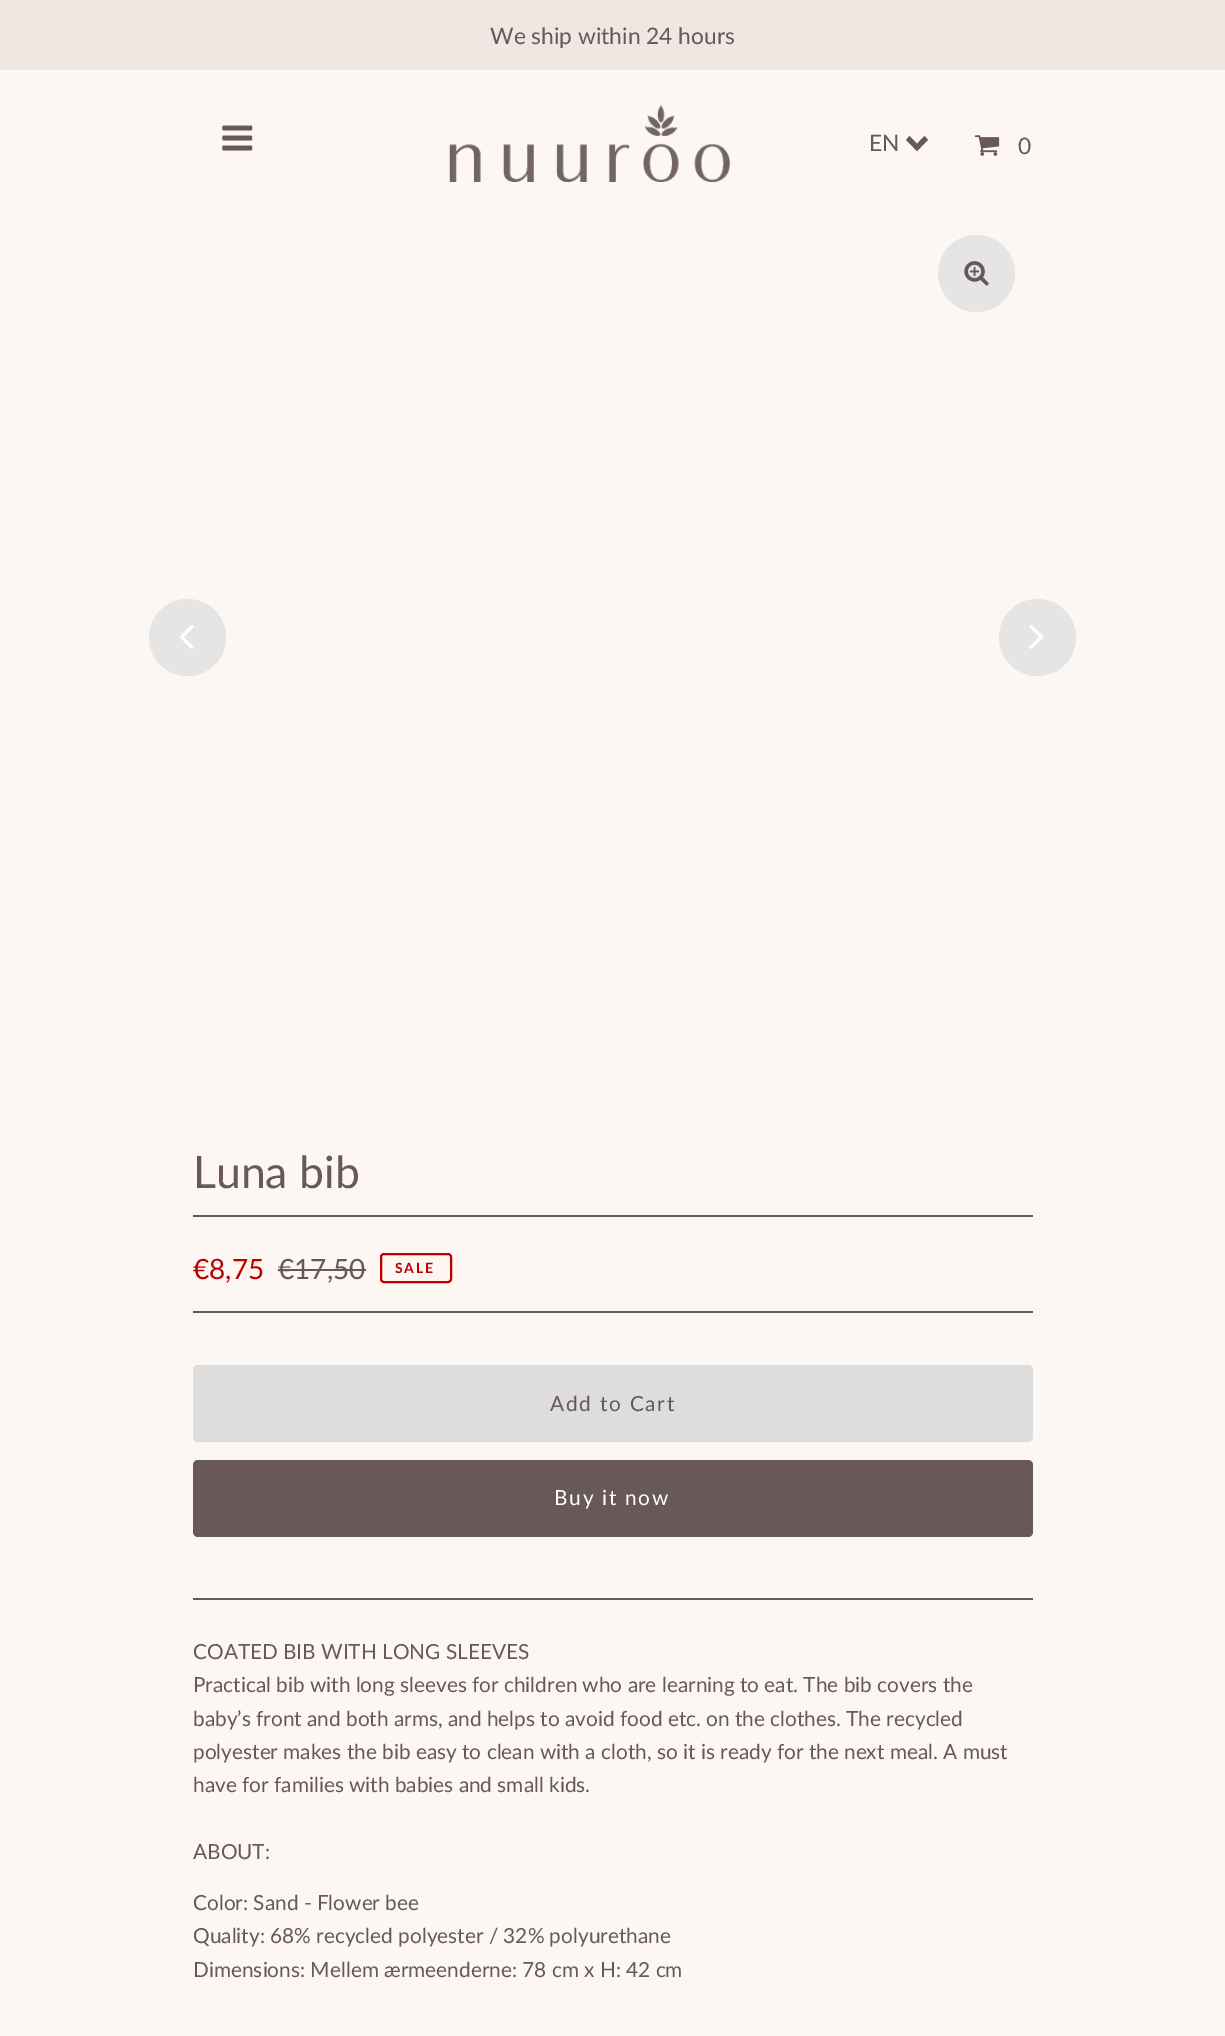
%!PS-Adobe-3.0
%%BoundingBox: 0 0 1225 2036
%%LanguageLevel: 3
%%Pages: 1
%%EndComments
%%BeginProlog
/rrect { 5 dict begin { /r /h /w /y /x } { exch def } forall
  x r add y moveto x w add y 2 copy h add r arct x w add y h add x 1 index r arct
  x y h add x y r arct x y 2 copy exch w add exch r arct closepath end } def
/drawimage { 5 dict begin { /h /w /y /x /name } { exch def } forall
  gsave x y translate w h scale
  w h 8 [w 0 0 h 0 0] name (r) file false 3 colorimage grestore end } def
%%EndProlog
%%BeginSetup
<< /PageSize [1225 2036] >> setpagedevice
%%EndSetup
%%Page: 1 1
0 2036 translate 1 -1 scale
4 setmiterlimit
0.988 0.969 0.949 setrgbcolor
0 0 1225 2036 rectfill
0.937 0.91 0.886 setrgbcolor
0 0 1225 70 rectfill
(images/1.raw) 222 125 31 26 drawimage
(images/2.raw) 449 105 281 77 drawimage
0.408 0.345 0.345 setrgbcolor
newpath 924.5 136 moveto 928 140 lineto 917 151 lineto 913.5 147.5 lineto closepath fill
newpath 909.5 136 moveto 920.5 147.5 lineto 917 151 lineto 906 140 lineto closepath fill
(images/3.raw) 974 135 26 21 drawimage
0.898 setgray
newpath 976.5 273.5 38.5 0 360 arc closepath fill
(images/4.raw) 964 261 25 25 drawimage
newpath 187.5 637.5 38.5 0 360 arc closepath fill
(images/5.raw) 179 625 15 24 drawimage
newpath 1037.5 637.5 38.5 0 360 arc closepath fill
(images/6.raw) 1029 625 15 24 drawimage
0.408 0.345 0.345 setrgbcolor
193 1215 840 2 rectfill
193 1598 840 2 rectfill
193 1311 840 2 rectfill
278 1269 88 2 rectfill
0.737 0 0 setrgbcolor
2 setlinewidth
381 1254 70 28 3 rrect stroke
0.867 setgray
193 1365 840 77 5 rrect fill
0.408 0.345 0.345 setrgbcolor
193 1460 840 77 5 rrect fill
/Lato-Regular [22.75 0 0 -22.75 0 0] selectfont
490 44 moveto (We ship within 24 hours) show
869 151 moveto (EN) show
1018 154 moveto 1.75 0 (0) ashow
/Lato-Regular [44.5 0 0 -44.5 0 0] selectfont
193 1188 moveto (Luna bib) show
/Lato-Regular [28 0 0 -28 0 0] selectfont
0.737 0 0 setrgbcolor
193 1279 moveto (€8,75) show
0.408 0.345 0.345 setrgbcolor
278 1279 moveto (€17,50) show
/Lato-Bold [14 0 0 -14 0 0] selectfont
0.737 0 0 setrgbcolor
395 1273 moveto 1.75 0 (SALE) ashow
/Lato-Regular [20.8 0 0 -20.8 0 0] selectfont
0.408 0.345 0.345 setrgbcolor
550 1411 moveto 1.75 0 (Add to Cart) ashow
1 setgray
554 1505 moveto 1.75 0 (Buy it now) ashow
0.408 0.345 0.345 setrgbcolor
193 1659 moveto (COATED BIB WITH LONG SLEEVES) show
193 1692 moveto (Practical bib with long sleeves for children who are learning to eat. The bib covers the) show
193 1726 moveto (baby’s front and both arms, and helps to avoid food etc. on the clothes. The recycled) show
193 1759 moveto (polyester makes the bib easy to clean with a cloth, so it is ready for the next meal. A must) show
193 1792 moveto (have for families with babies and small kids.) show
193 1859 moveto (ABOUT:) show
193 1910 moveto (Color: Sand - Flower bee) show
193 1943 moveto (Quality: 68% recycled polyester / 32% polyurethane) show
193 1977 moveto (Dimensions: Mellem ærmeenderne: 78 cm x H: 42 cm) show
showpage
%%EOF
